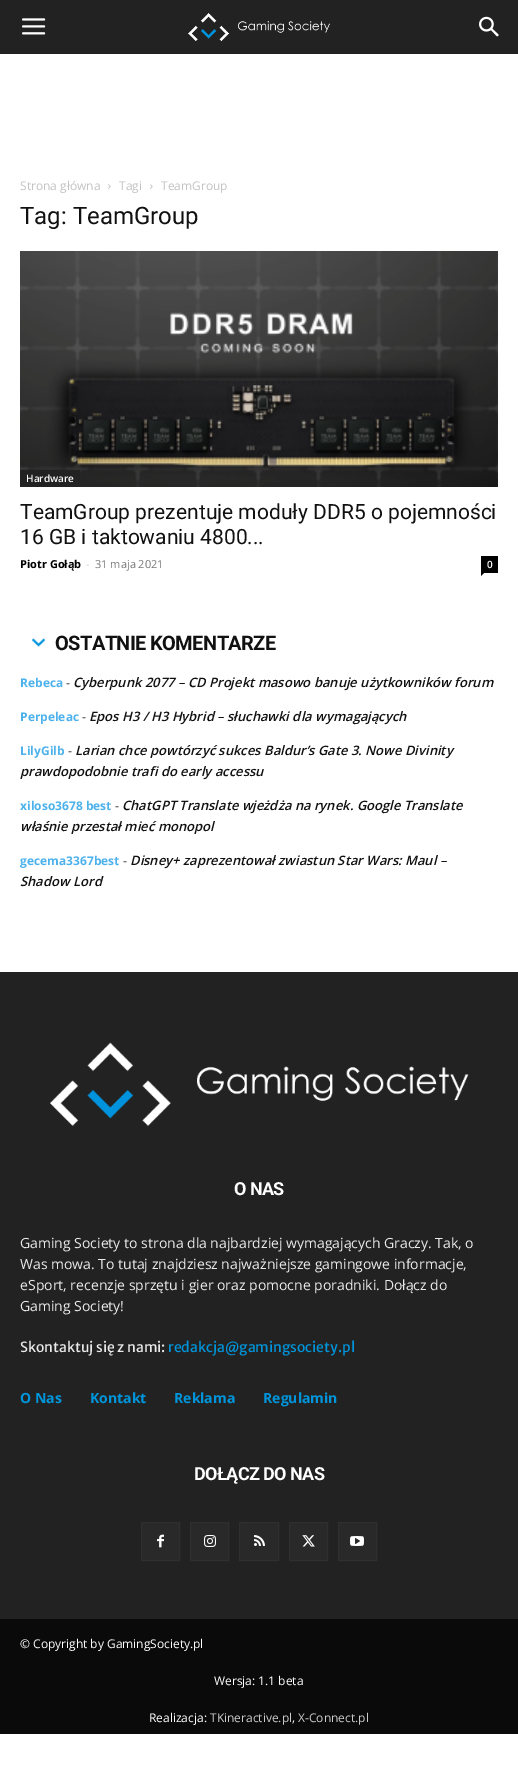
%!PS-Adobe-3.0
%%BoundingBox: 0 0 518 1765
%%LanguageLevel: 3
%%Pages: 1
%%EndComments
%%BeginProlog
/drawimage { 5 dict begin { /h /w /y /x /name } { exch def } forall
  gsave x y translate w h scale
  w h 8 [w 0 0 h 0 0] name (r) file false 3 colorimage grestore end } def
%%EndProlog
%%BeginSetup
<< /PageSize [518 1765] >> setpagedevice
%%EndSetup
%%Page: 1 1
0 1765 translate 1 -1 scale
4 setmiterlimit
1 setgray
0 0 518 1765 rectfill
0.133 setgray
0 0 518 54 rectfill
(images/1.raw) 22 18 24 17 drawimage
(images/2.raw) 188 13 142 29 drawimage
(images/3.raw) 479 16 20 21 drawimage
(images/4.raw) 108 184 3 5 drawimage
(images/4.raw) 150 184 3 5 drawimage
(images/5.raw) 20 251 478 236 drawimage
20 470 60 17 rectfill
0 setgray
481 556 17 17 rectfill
newpath 481 573 moveto 484 573 lineto 481 576 lineto closepath fill
(images/6.raw) 32 638 13 9 drawimage
0.133 setgray
0 972 518 647 rectfill
(images/7.raw) 50 1042 419 85 drawimage
0.161 setgray
newpath 141.5 1522.5 moveto 179.5 1522.5 lineto 179.5 1560.5 lineto 141.5 1560.5 lineto closepath gsave fill grestore
0.184 setgray
stroke
(images/8.raw) 157 1534 7 14 drawimage
0.161 setgray
newpath 190.5 1522.5 moveto 228.5 1522.5 lineto 228.5 1560.5 lineto 190.5 1560.5 lineto closepath gsave fill grestore
0.184 setgray
stroke
(images/9.raw) 204 1535 12 12 drawimage
0.161 setgray
newpath 239.5 1522.5 moveto 278.5 1522.5 lineto 278.5 1560.5 lineto 239.5 1560.5 lineto closepath gsave fill grestore
0.184 setgray
stroke
(images/10.raw) 254 1535 11 11 drawimage
0.161 setgray
newpath 289.5 1522.5 moveto 327.5 1522.5 lineto 327.5 1560.5 lineto 289.5 1560.5 lineto closepath gsave fill grestore
0.184 setgray
stroke
(images/11.raw) 302 1535 13 12 drawimage
0.161 setgray
newpath 338.5 1522.5 moveto 376.5 1522.5 lineto 376.5 1560.5 lineto 338.5 1560.5 lineto closepath gsave fill grestore
0.184 setgray
stroke
(images/12.raw) 350 1536 14 10 drawimage
0.039 setgray
0 1619 518 115 rectfill
/OpenSans-Regular [12 0 0 -12 0 0] selectfont
0.765 setgray
20 190 moveto (Strona główna) show
119 190 moveto (Tagi) show
161 190 moveto (TeamGroup) show
/Roboto-Regular [24 0 0 -24 0 0] selectfont
0.067 setgray
20 224 moveto (Tag: TeamGroup) show
/OpenSans-SemiBold [10 0 0 -10 0 0] selectfont
1 setgray
26 482 moveto (Hardware) show
/Roboto-Regular [21 0 0 -21 0 0] selectfont
0.067 setgray
20 519 moveto (TeamGroup prezentuje moduły DDR5 o pojemności) show
20 544 moveto (16 GB i taktowaniu 4800...) show
/OpenSans-Bold [11 0 0 -11 0 0] selectfont
0 setgray
20 568 moveto (Piotr Gołąb) show
/OpenSans-Regular [11 0 0 -11 0 0] selectfont
0.8 setgray
86 568 moveto (-) show
0.463 setgray
95 568 moveto (31 maja 2021) show
/OpenSans-SemiBold [10 0 0 -10 0 0] selectfont
1 setgray
487 568 moveto (0) show
/Roboto-Bold [20 0 0 -20 0 0] selectfont
0.067 setgray
55 650 moveto -0.6 0 (OSTATNIE KOMENTARZE) ashow
/OpenSans-Bold [12 0 0 -12 0 0] selectfont
0.302 0.698 0.925 setrgbcolor
20 687 moveto (Rebeca) show
/OpenSans-Regular [12 0 0 -12 0 0] selectfont
0.267 setgray
66 687 moveto (-) show
/OpenSans-SemiBoldItalic [13 0 0 -13 0 0] selectfont
0.067 setgray
73 687 moveto (Cyberpunk 2077 – CD Projekt masowo banuje użytkowników forum) show
/OpenSans-Bold [12 0 0 -12 0 0] selectfont
0.302 0.698 0.925 setrgbcolor
20 721 moveto (Perpeleac) show
/OpenSans-Regular [12 0 0 -12 0 0] selectfont
0.267 setgray
82 721 moveto (-) show
/OpenSans-SemiBoldItalic [13 0 0 -13 0 0] selectfont
0.067 setgray
89 721 moveto (Epos H3 / H3 Hybrid – słuchawki dla wymagających) show
/OpenSans-Bold [12 0 0 -12 0 0] selectfont
0.302 0.698 0.925 setrgbcolor
20 755 moveto (LilyGilb) show
/OpenSans-Regular [12 0 0 -12 0 0] selectfont
0.267 setgray
68 755 moveto (-) show
/OpenSans-SemiBoldItalic [13 0 0 -13 0 0] selectfont
0.067 setgray
75 755 moveto (Larian chce powtórzyć sukces Baldur’s Gate 3. Nowe Divinity) show
20 776 moveto (prawdopodobnie trafi do early accessu) show
/OpenSans-Bold [12 0 0 -12 0 0] selectfont
0.302 0.698 0.925 setrgbcolor
20 810 moveto (xiloso3678 best) show
/OpenSans-Regular [12 0 0 -12 0 0] selectfont
0.267 setgray
115 810 moveto (-) show
/OpenSans-SemiBoldItalic [13 0 0 -13 0 0] selectfont
0.067 setgray
122 810 moveto (ChatGPT Translate wjeżdża na rynek. Google Translate) show
20 831 moveto (właśnie przestał mieć monopol) show
/OpenSans-Bold [12 0 0 -12 0 0] selectfont
0.302 0.698 0.925 setrgbcolor
20 865 moveto (gecema3367best) show
/OpenSans-Regular [12 0 0 -12 0 0] selectfont
0.267 setgray
123 865 moveto (-) show
/OpenSans-SemiBoldItalic [13 0 0 -13 0 0] selectfont
0.067 setgray
130 865 moveto (Disney+ zaprezentował zwiastun Star Wars: Maul –) show
20 886 moveto (Shadow Lord) show
/Roboto-Bold [18 0 0 -18 0 0] selectfont
1 setgray
234 1195 moveto -0.6 0 (O NAS) ashow
/OpenSans-Regular [14 0 0 -14 0 0] selectfont
0.918 setgray
20 1248 moveto (Gaming Society to strona dla najbardziej wymagających Graczy. Tak, o) show
20 1269 moveto (Was mowa. To tutaj znajdziesz najważniejsze gamingowe informacje,) show
20 1290 moveto (eSport, recenzje sprzętu i gier oraz pomocne poradniki. Dołącz do) show
20 1311 moveto (Gaming Society!) show
/MerriweatherSans-Regular [14 0 0 -14 0 0] selectfont
20 1352 moveto (Skontaktuj się z nami:) show
0 0.584 0.855 setrgbcolor
168 1352 moveto (redakcja@gamingsociety.pl) show
/OpenSans-Bold [14 0 0 -14 0 0] selectfont
20 1403 moveto (O Nas) show
90 1403 moveto (Kontakt) show
174 1403 moveto (Reklama) show
263 1403 moveto (Regulamin) show
/Roboto-Bold [18 0 0 -18 0 0] selectfont
1 setgray
194 1480 moveto -0.6 0 (DOŁĄCZ DO NAS) ashow
/OpenSans-Regular [12 0 0 -12 0 0] selectfont
20 1648 moveto (© Copyright by GamingSociety.pl) show
214 1685 moveto (Wersja: 1.1 beta) show
149 1722 moveto (Realizacja:) show
0.8 setgray
210 1722 moveto (TKineractive.pl) show
1 setgray
292 1722 moveto (,) show
0.8 setgray
298 1722 moveto (X-Connect.pl) show
showpage
%%EOF
